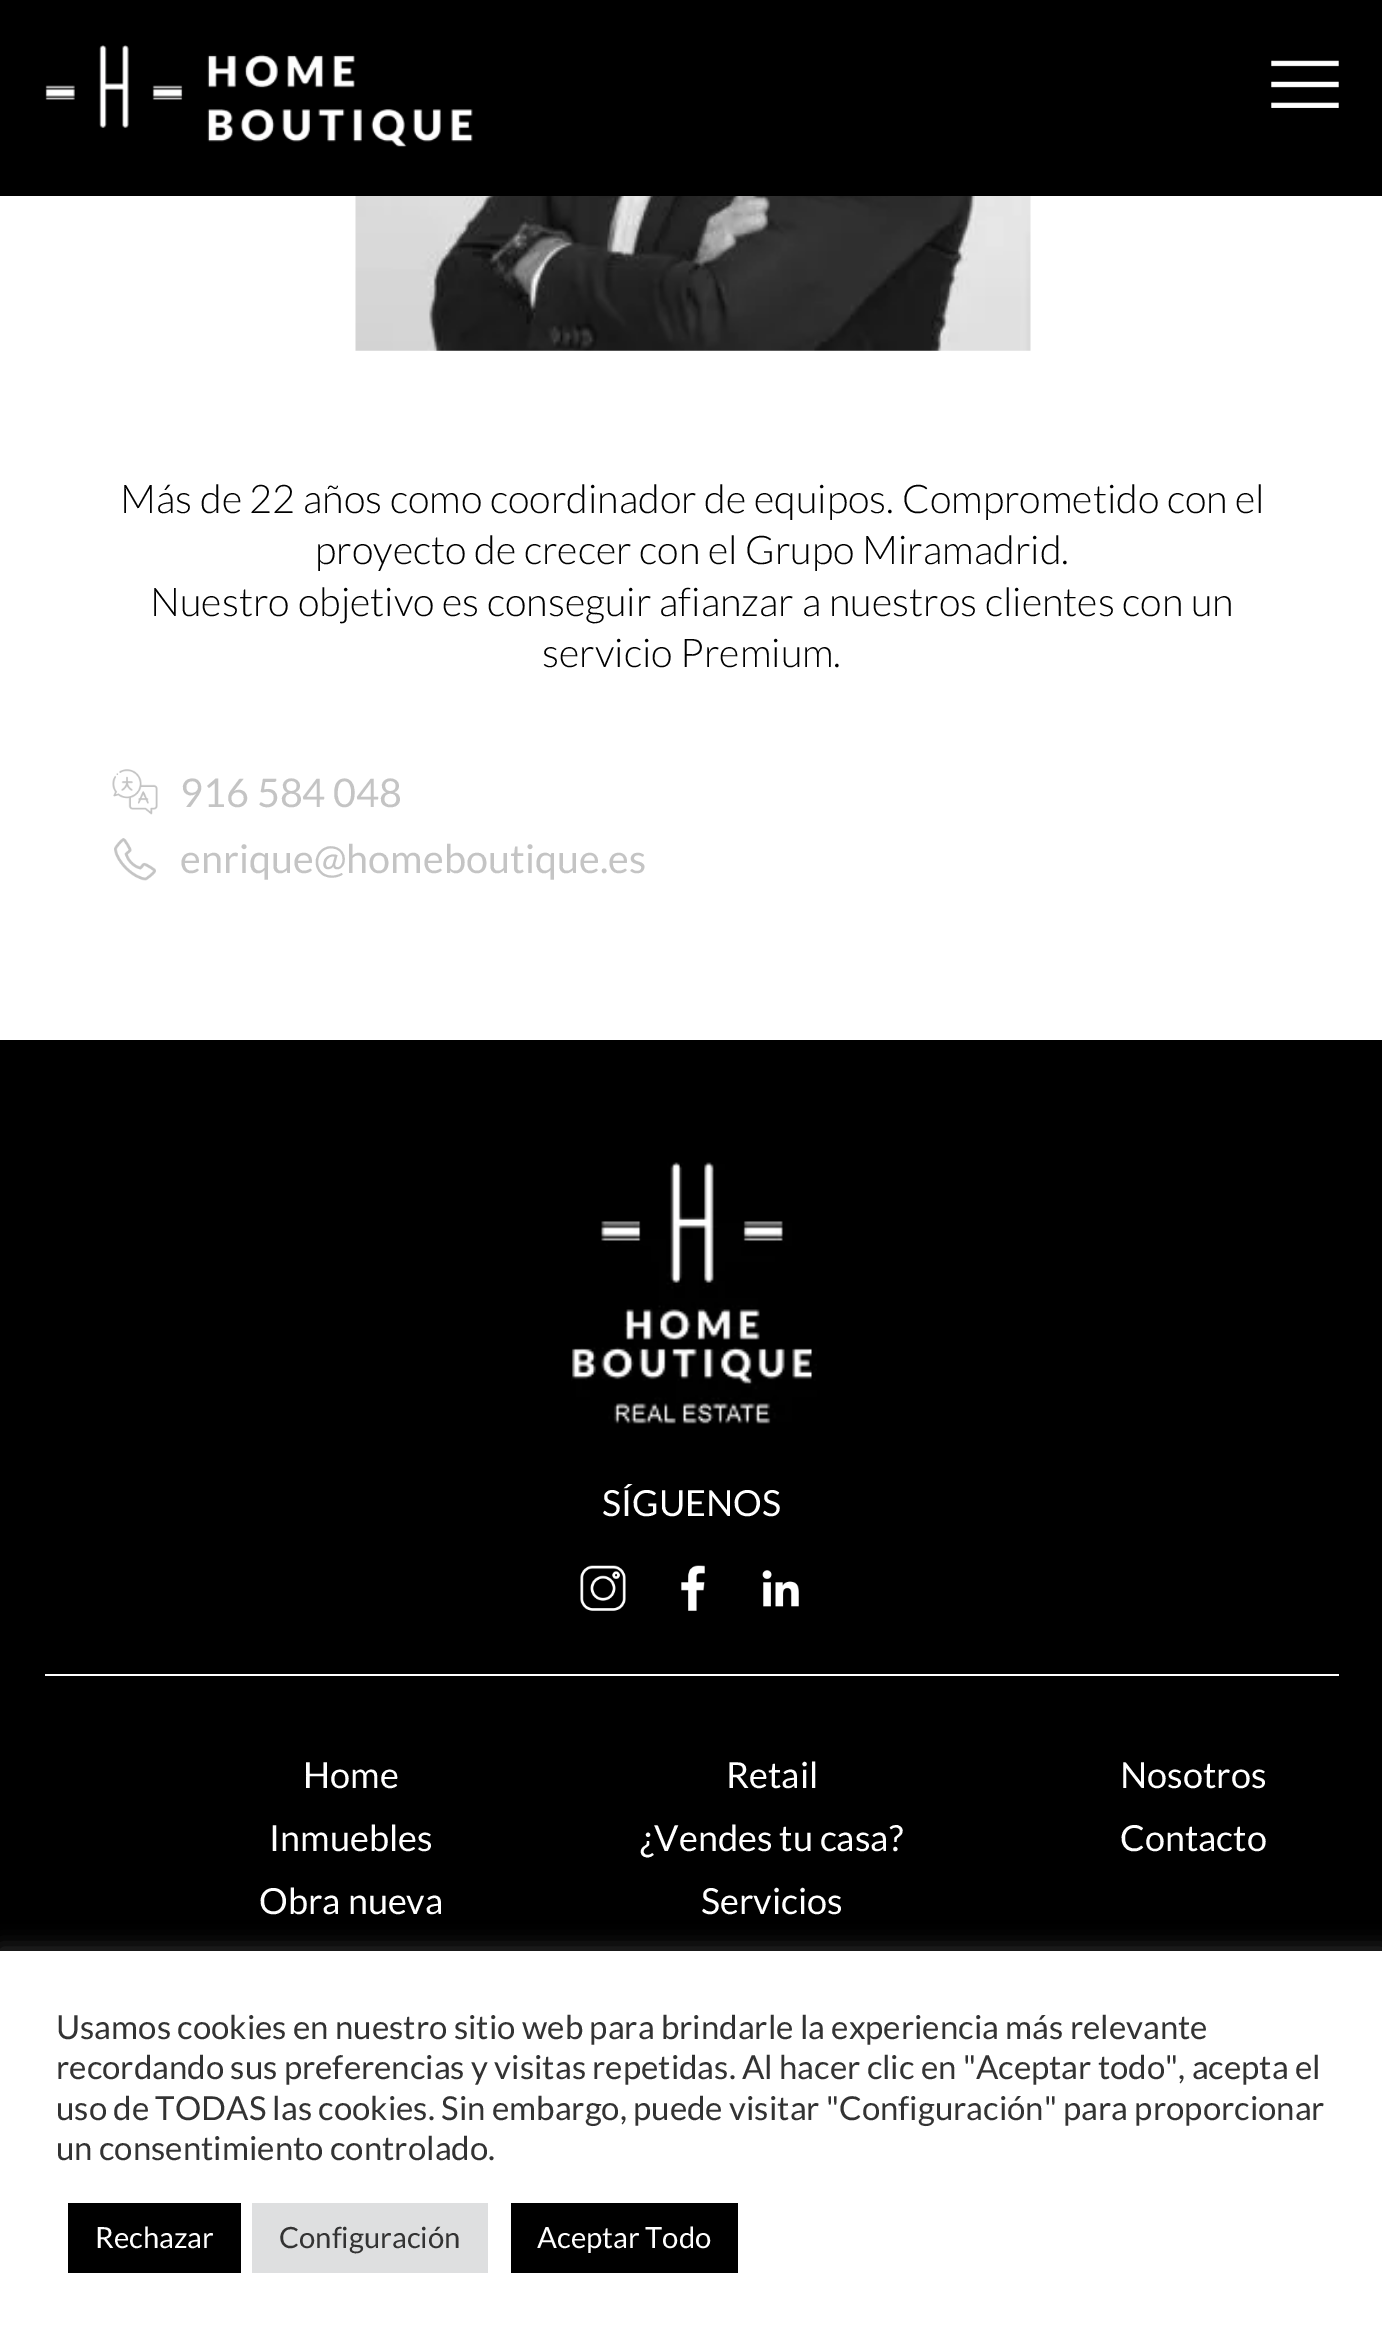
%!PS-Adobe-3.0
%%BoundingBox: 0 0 1382 2340
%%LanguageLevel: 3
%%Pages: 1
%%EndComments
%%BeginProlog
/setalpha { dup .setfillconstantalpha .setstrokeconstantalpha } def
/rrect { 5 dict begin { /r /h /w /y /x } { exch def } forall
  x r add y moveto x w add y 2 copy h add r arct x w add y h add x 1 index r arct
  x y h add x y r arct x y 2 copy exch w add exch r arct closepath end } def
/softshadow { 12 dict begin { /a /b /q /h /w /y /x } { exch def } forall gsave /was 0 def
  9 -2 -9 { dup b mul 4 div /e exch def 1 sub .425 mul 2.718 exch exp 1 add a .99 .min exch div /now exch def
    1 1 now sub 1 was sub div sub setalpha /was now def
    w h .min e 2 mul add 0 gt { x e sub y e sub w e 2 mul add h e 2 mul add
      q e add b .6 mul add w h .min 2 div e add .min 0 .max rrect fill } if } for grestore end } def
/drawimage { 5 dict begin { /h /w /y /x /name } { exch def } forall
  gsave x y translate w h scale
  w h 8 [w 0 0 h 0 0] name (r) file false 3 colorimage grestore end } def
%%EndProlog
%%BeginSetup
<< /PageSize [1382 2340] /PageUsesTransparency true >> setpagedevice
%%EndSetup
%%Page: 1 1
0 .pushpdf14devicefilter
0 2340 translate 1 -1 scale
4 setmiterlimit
1 setgray
0 0 1382 2340 rectfill
0 setgray
0 0 1382 196 rectfill
(images/1.raw) 45 45 428 102 drawimage
(images/2.raw) 1271 60 68 48 drawimage
(images/3.raw) 355 196 676 155 drawimage
(images/4.raw) 112 769 46 46 drawimage
(images/5.raw) 114 838 42 43 drawimage
0 1040 1382 911 rectfill
1 setgray
45 1674 1294 2 rectfill
(images/6.raw) 571 1162 246 262 drawimage
(images/7.raw) 580 1565 46 46 drawimage
(images/8.raw) 681 1565 24 46 drawimage
(images/9.raw) 762 1570 37 37 drawimage
0.675 0.671 0.671 setrgbcolor
0 1949 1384 389 0 11 0.3 softshadow
1 setgray
0 1951 1382 389 rectfill
0 setgray
68 2203 173 70 rectfill
0.871 0.875 0.878 setrgbcolor
252 2203 236 70 rectfill
0 setgray
511 2203 227 70 rectfill
/Lato-Light [39.6 0 0 -39.6 0 0] selectfont
120 513 moveto (Más de 22 años como coordinador de equipos. Comprometido con el) show
315 564 moveto (proyecto de crecer con el Grupo Miramadrid.) show
150 616 moveto (Nuestro objetivo es conseguir afianzar a nuestros clientes con un) show
542 667 moveto (servicio Premium.) show
/Lato-Regular [39.6 0 0 -39.6 0 0] selectfont
0.769 setgray
180 807 moveto (916 584 048) show
180 873 moveto (enrique@homeboutique.es) show
/Lato-Regular [36 0 0 -36 0 0] selectfont
1 setgray
602 1516 moveto (SÍGUENOS) show
303 1788 moveto (Home) show
269 1851 moveto (Inmuebles) show
259 1914 moveto (Obra nueva) show
726 1788 moveto (Retail) show
640 1851 moveto (¿Vendes tu casa?) show
701 1914 moveto (Servicios) show
1120 1788 moveto (Nosotros) show
1120 1851 moveto (Contacto) show
/Lato-Regular [33 0 0 -33 0 0] selectfont
0.2 setgray
56 2039 moveto (Usamos cookies en nuestro sitio web para brindarle la experiencia más relevante) show
56 2079 moveto (recordando sus preferencias y visitas repetidas. Al hacer clic en "Aceptar todo", acepta el) show
56 2120 moveto (uso de TODAS las cookies. Sin embargo, puede visitar "Configuración" para proporcionar) show
56 2160 moveto (un consentimiento controlado.) show
/Lato-Regular [29.25 0 0 -29.25 0 0] selectfont
1 setgray
95 2248 moveto (Rechazar) show
0.2 setgray
279 2248 moveto (Configuración) show
1 setgray
537 2248 moveto (Aceptar Todo) show
.poppdf14devicefilter showpage
%%EOF
